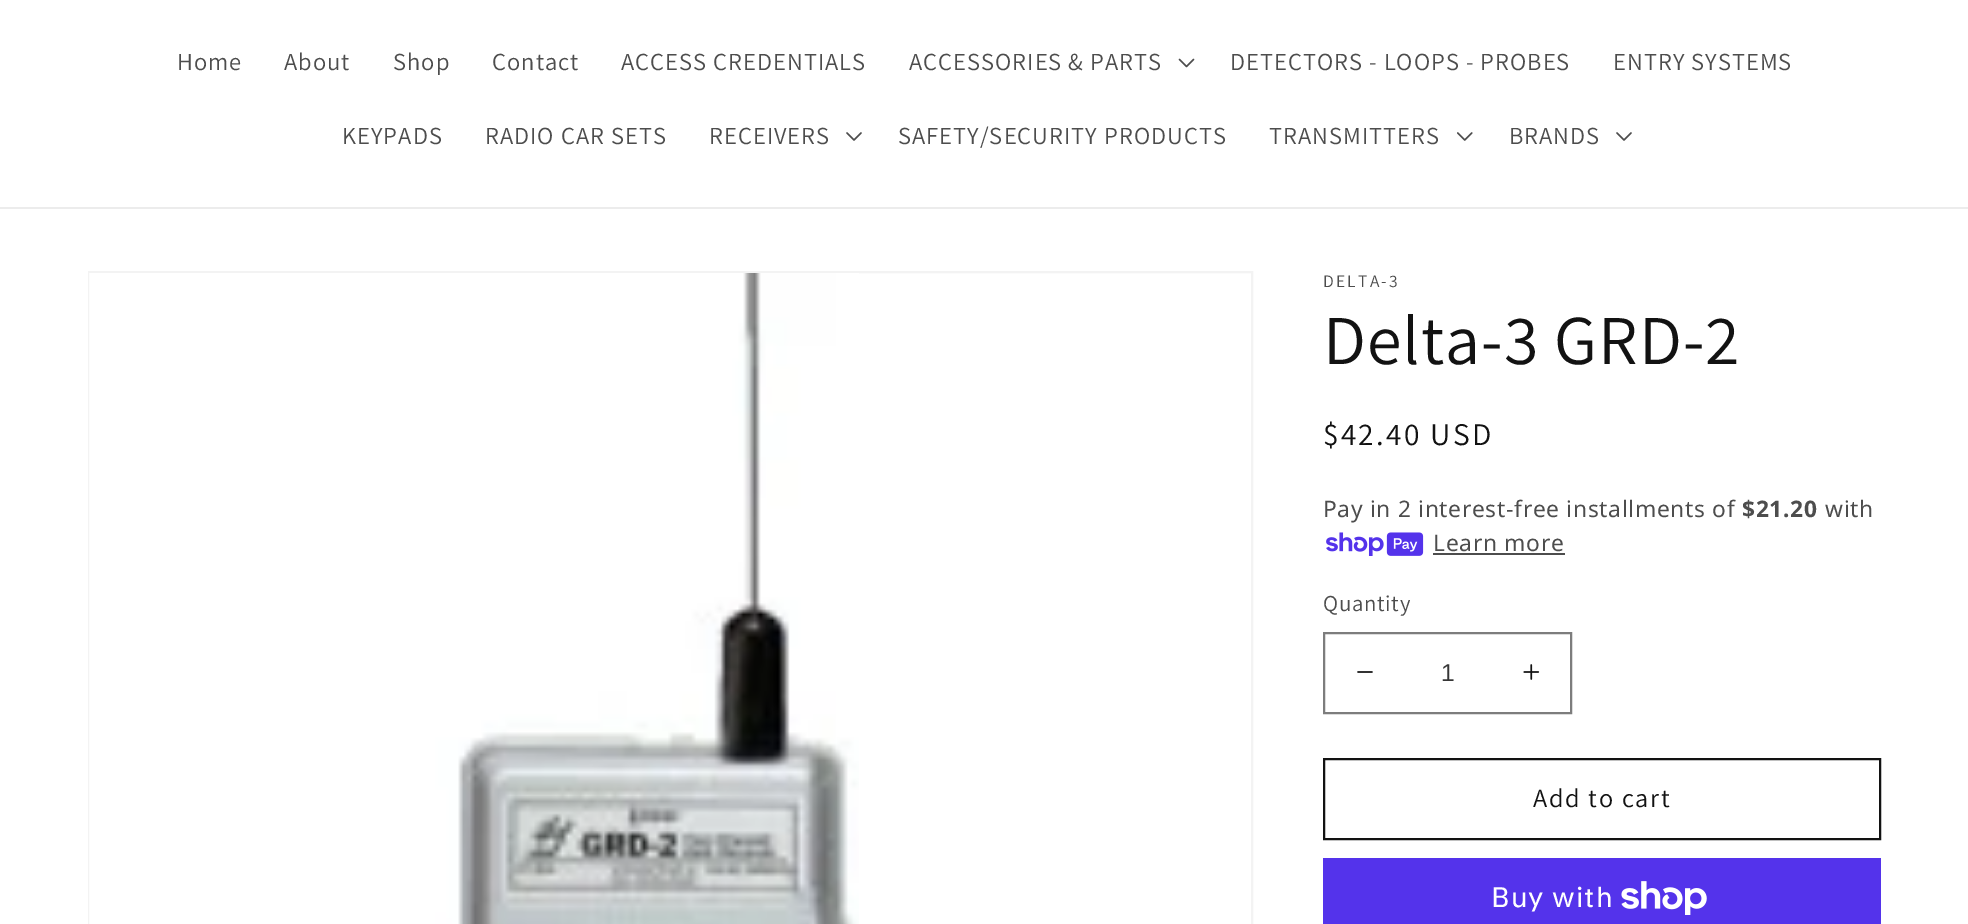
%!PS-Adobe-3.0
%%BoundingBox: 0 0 1968 924
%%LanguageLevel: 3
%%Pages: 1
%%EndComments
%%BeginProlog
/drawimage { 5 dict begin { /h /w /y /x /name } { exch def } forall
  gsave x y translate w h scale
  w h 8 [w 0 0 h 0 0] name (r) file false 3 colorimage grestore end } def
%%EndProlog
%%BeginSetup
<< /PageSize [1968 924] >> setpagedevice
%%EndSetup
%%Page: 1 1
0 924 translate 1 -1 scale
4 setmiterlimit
1 setgray
0 0 1968 924 rectfill
0.925 setgray
0 207 1968 2 rectfill
(images/1.raw) 1178 58 17 10 drawimage
(images/2.raw) 846 132 16 9 drawimage
(images/3.raw) 1457 132 16 9 drawimage
(images/2.raw) 1616 132 16 9 drawimage
0.953 setgray
2 setlinewidth
89 272 1163 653 rectstroke
(images/4.raw) 89 273 770 651 drawimage
(images/5.raw) 1326 532 98 24 drawimage
0.302 setgray
1433 553 132 2 rectfill
(images/6.raw) 1357 671 16 2 drawimage
(images/7.raw) 1523 664 17 16 drawimage
0.49 setgray
1324 633 247 80 rectstroke
0.071 setgray
1324 759 556 80 rectstroke
0.329 0.2 0.922 setrgbcolor
1323 858 558 66 rectfill
(images/8.raw) 1621 881 86 34 drawimage
/Assistant-Regular [24.5 0 0 -24.5 0 0] selectfont
0.302 setgray
177 70 moveto 1.05 0 (Home) ashow
284 70 moveto 1.05 0 (About) ashow
393 70 moveto 1.05 0 (Shop) ashow
492 70 moveto 1.05 0 (Contact) ashow
621 70 moveto 1.05 0 (ACCESS CREDENTIALS) ashow
909 70 moveto 1.05 0 (ACCESSORIES & PARTS) ashow
1230 70 moveto 1.05 0 (DETECTORS - LOOPS - PROBES) ashow
1613 70 moveto 1.05 0 (ENTRY SYSTEMS) ashow
342 144 moveto 1.05 0 (KEYPADS) ashow
485 144 moveto 1.05 0 (RADIO CAR SETS) ashow
709 144 moveto 1.05 0 (RECEIVERS) ashow
898 144 moveto 1.05 0 (SAFETY/SECURITY PRODUCTS) ashow
1269 144 moveto 1.05 0 (TRANSMITTERS) ashow
1509 144 moveto 1.05 0 (BRANDS) ashow
/Assistant-Regular [17.5 0 0 -17.5 0 0] selectfont
1323 287 moveto 2.25 0 (DELTA-3) ashow
/Assistant-Regular [70 0 0 -70 0 0] selectfont
0.071 setgray
1323 364 moveto 1.05 0 (Delta-3 GRD-2) ashow
/Assistant-Regular [31.5 0 0 -31.5 0 0] selectfont
1323 445 moveto 2.25 0 ($42.40 USD) ashow
/NotoSans-Regular [22.75 0 0 -22.75 0 0] selectfont
0.302 setgray
1323 517 moveto 0.7 0 (Pay in 2 interest-free installments of) ashow
/NotoSans-Bold [22.75 0 0 -22.75 0 0] selectfont
1742 517 moveto 0.7 0 ($21.20) ashow
/NotoSans-Regular [22.75 0 0 -22.75 0 0] selectfont
1825 517 moveto 0.7 0 (with) ashow
1433 551 moveto 0.7 0 (Learn more) ashow
/Assistant-Regular [22.75 0 0 -22.75 0 0] selectfont
1323 611 moveto 0.7 0 (Quantity) ashow
/LiberationSans-Regular [24.5 0 0 -24.5 0 0] selectfont
0.212 setgray
1441 681 moveto (1) show
/Assistant-Regular [26.25 0 0 -26.25 0 0] selectfont
0.071 setgray
1533 807 moveto 1.75 0 (Add to cart) ashow
/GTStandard-Regular [28 0 0 -28 0 0] selectfont
1 setgray
1491 907 moveto 1.05 0 (Buy with) ashow
showpage
%%EOF
